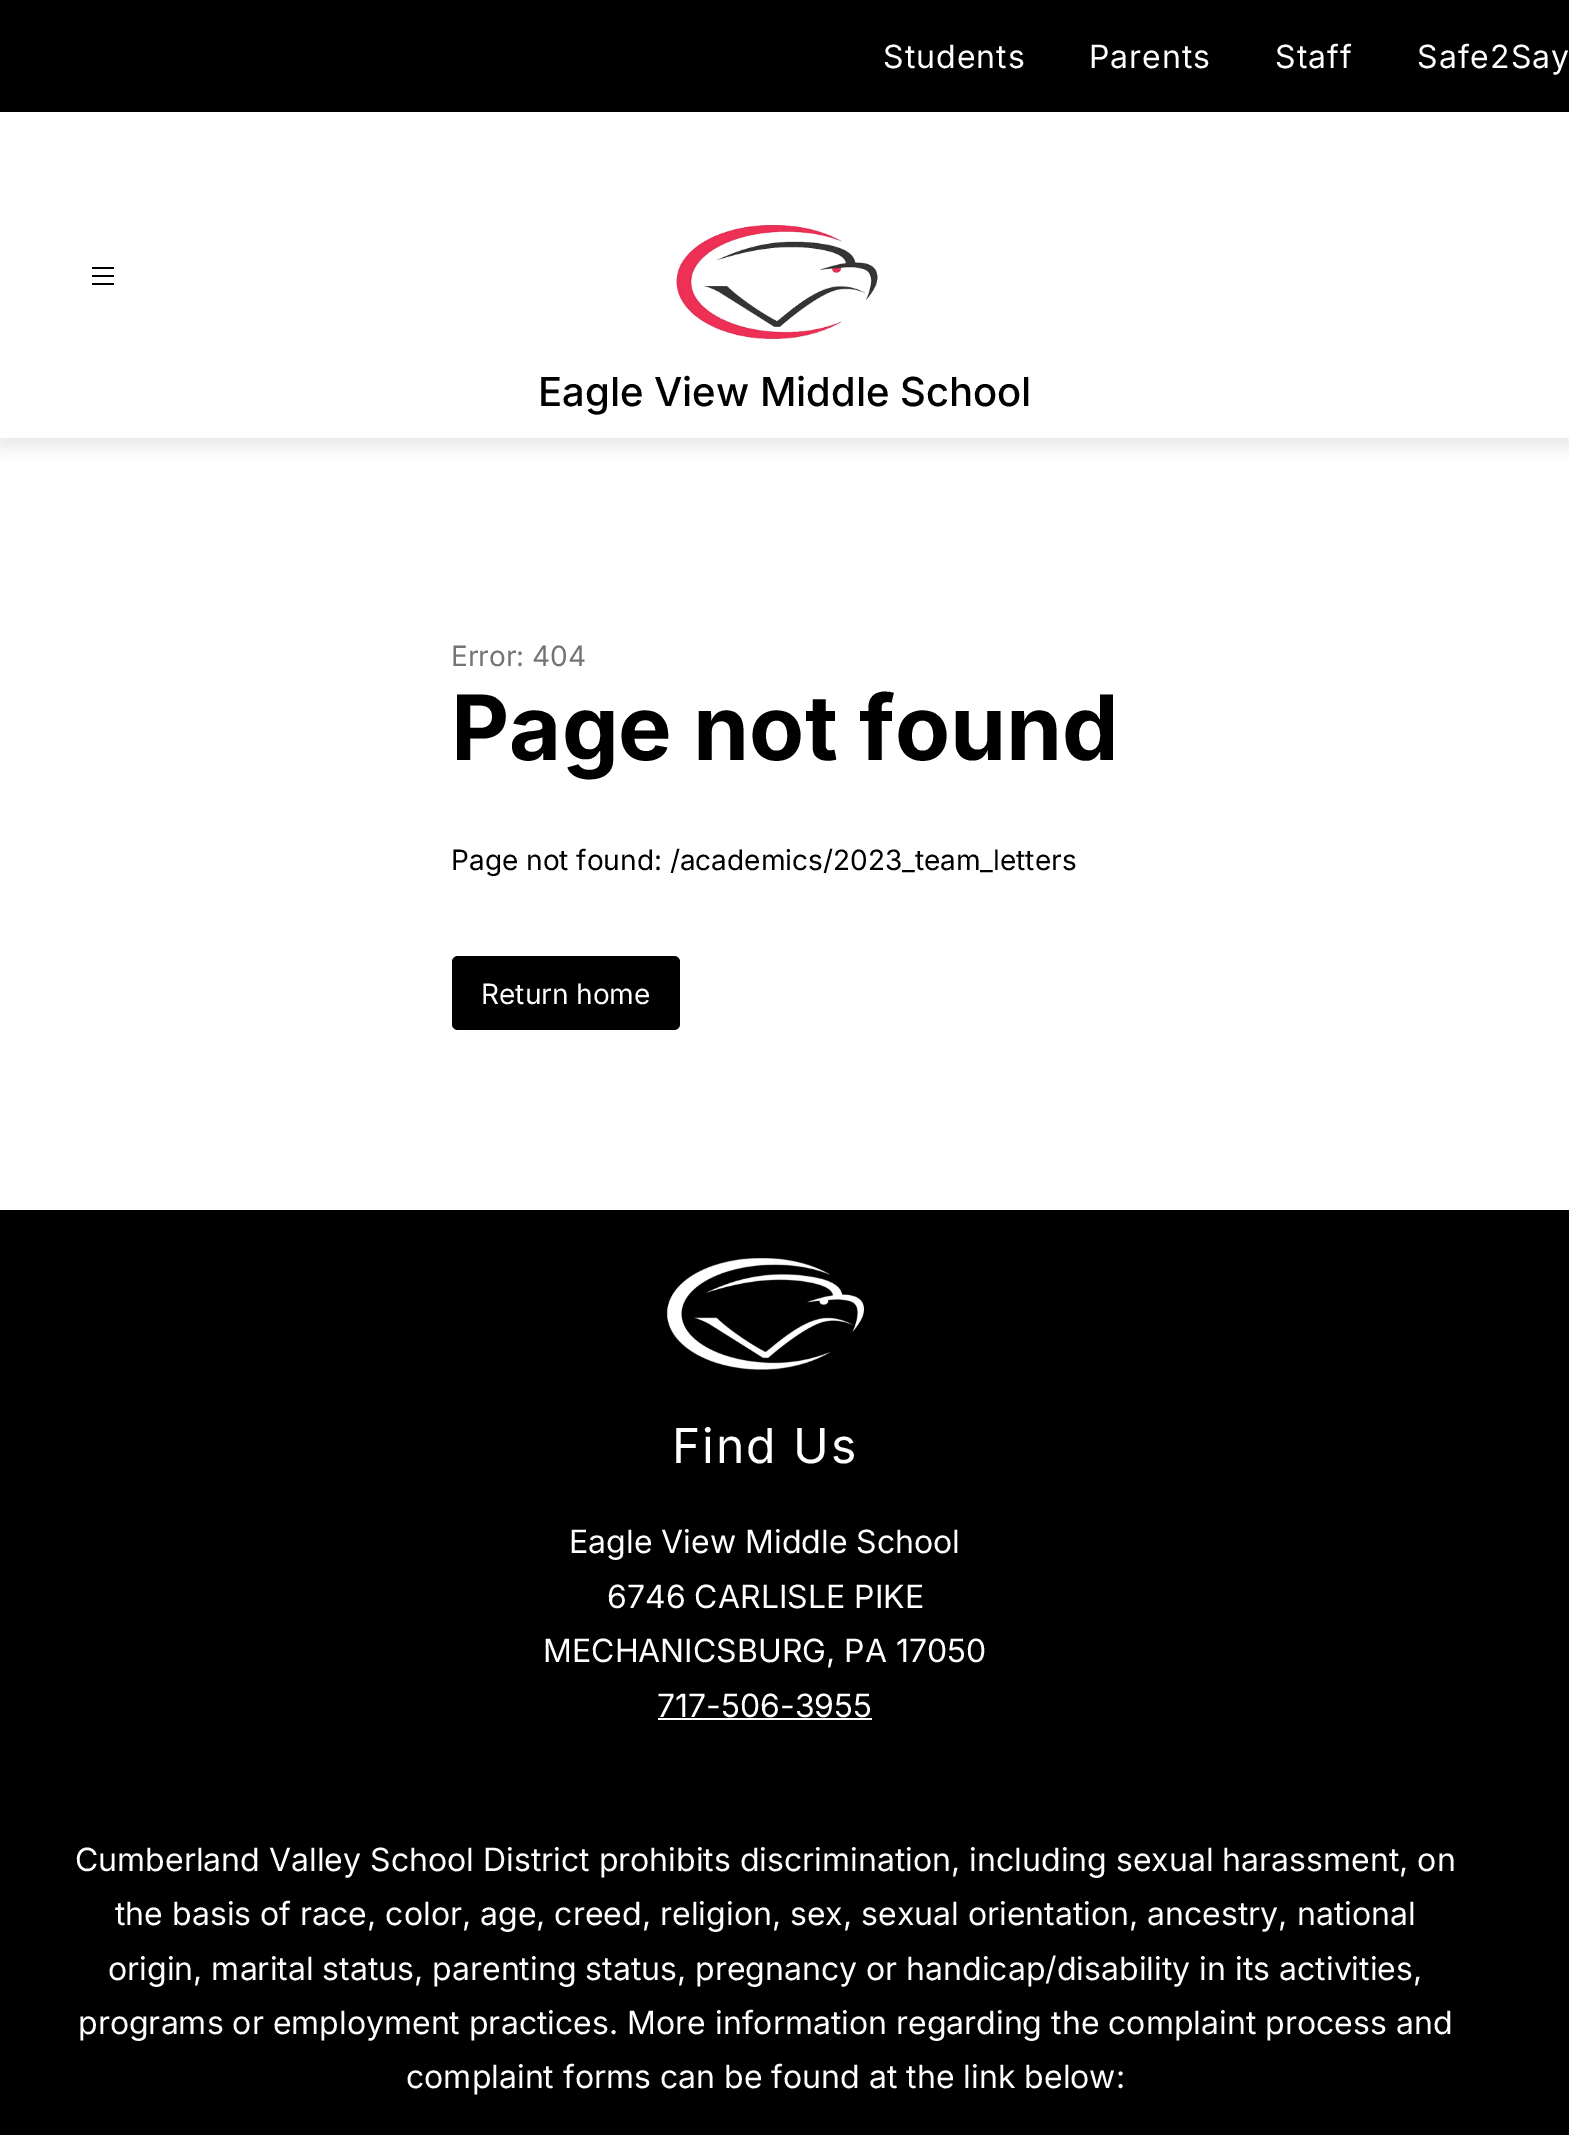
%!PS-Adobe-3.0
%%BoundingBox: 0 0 1569 2135
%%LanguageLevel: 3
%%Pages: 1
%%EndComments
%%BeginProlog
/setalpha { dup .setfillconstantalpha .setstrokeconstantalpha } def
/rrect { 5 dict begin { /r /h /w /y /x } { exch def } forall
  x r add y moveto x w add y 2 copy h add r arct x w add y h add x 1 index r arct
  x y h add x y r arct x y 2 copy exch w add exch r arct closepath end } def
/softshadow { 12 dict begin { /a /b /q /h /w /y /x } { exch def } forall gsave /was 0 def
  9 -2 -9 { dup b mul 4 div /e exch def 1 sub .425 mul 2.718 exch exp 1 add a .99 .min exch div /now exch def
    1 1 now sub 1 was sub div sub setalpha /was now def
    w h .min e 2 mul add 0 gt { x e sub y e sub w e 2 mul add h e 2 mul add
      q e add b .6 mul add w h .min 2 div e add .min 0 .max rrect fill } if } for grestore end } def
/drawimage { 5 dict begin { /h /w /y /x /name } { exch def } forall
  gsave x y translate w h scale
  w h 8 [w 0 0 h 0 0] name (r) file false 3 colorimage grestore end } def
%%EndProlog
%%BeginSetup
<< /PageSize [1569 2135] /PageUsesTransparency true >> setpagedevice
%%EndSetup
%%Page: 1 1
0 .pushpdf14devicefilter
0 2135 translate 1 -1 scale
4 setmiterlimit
1 setgray
0 0 1569 2135 rectfill
0 setgray
0 8 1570 438 0 10 0.1 softshadow
0 0 1569 112 rectfill
1 setgray
0 112 1569 326 rectfill
(images/1.raw) 92 267 22 18 drawimage
(images/2.raw) 676 225 202 114 drawimage
0 setgray
452 956 228 74 6 rrect fill
0 1210 1569 925 rectfill
(images/3.raw) 666 1258 198 112 drawimage
1 setgray
658 1718 214 2 rectfill
/Inter-Regular [32 0 0 -32 0 0] selectfont
883 68 moveto 1 0 (Students) ashow
1089 68 moveto 1 0 (Parents) ashow
1275 68 moveto 1 0 (Staff) ashow
1417 68 moveto 1 0 (Safe2Say) ashow
/Inter-Medium [40 0 0 -40 0 0] selectfont
0 setgray
538 406 moveto (Eagle View Middle School) show
/Inter-Regular [28 0 0 -28 0 0] selectfont
0.455 setgray
451 666 moveto (Error: 404) show
/Inter-Bold [90 0 0 -90 0 0] selectfont
0 setgray
451 760 moveto (Page not found) show
/Inter-Regular [28 0 0 -28 0 0] selectfont
451 870 moveto (Page not found: /academics/2023_team_letters) show
1 setgray
481 1004 moveto (Return home) show
/Inter-Regular [48 0 0 -48 0 0] selectfont
672 1463 moveto 2 0 (Find Us) ashow
/Inter-Regular [32 0 0 -32 0 0] selectfont
569 1553 moveto (Eagle View Middle School) show
607 1608 moveto (6746 CARLISLE PIKE) show
543 1662 moveto (MECHANICSBURG, PA 17050) show
657 1717 moveto (717-506-3955) show
75 1871 moveto (Cumberland Valley School District prohibits discrimination, including sexual harassment, on) show
115 1925 moveto (the basis of race, color, age, creed, religion, sex, sexual orientation, ancestry, national) show
108 1980 moveto (origin, marital status, parenting status, pregnancy or handicap/disability in its activities,) show
78 2034 moveto (programs or employment practices. More information regarding the complaint process and) show
406 2088 moveto (complaint forms can be found at the link below:) show
.poppdf14devicefilter showpage
%%EOF
